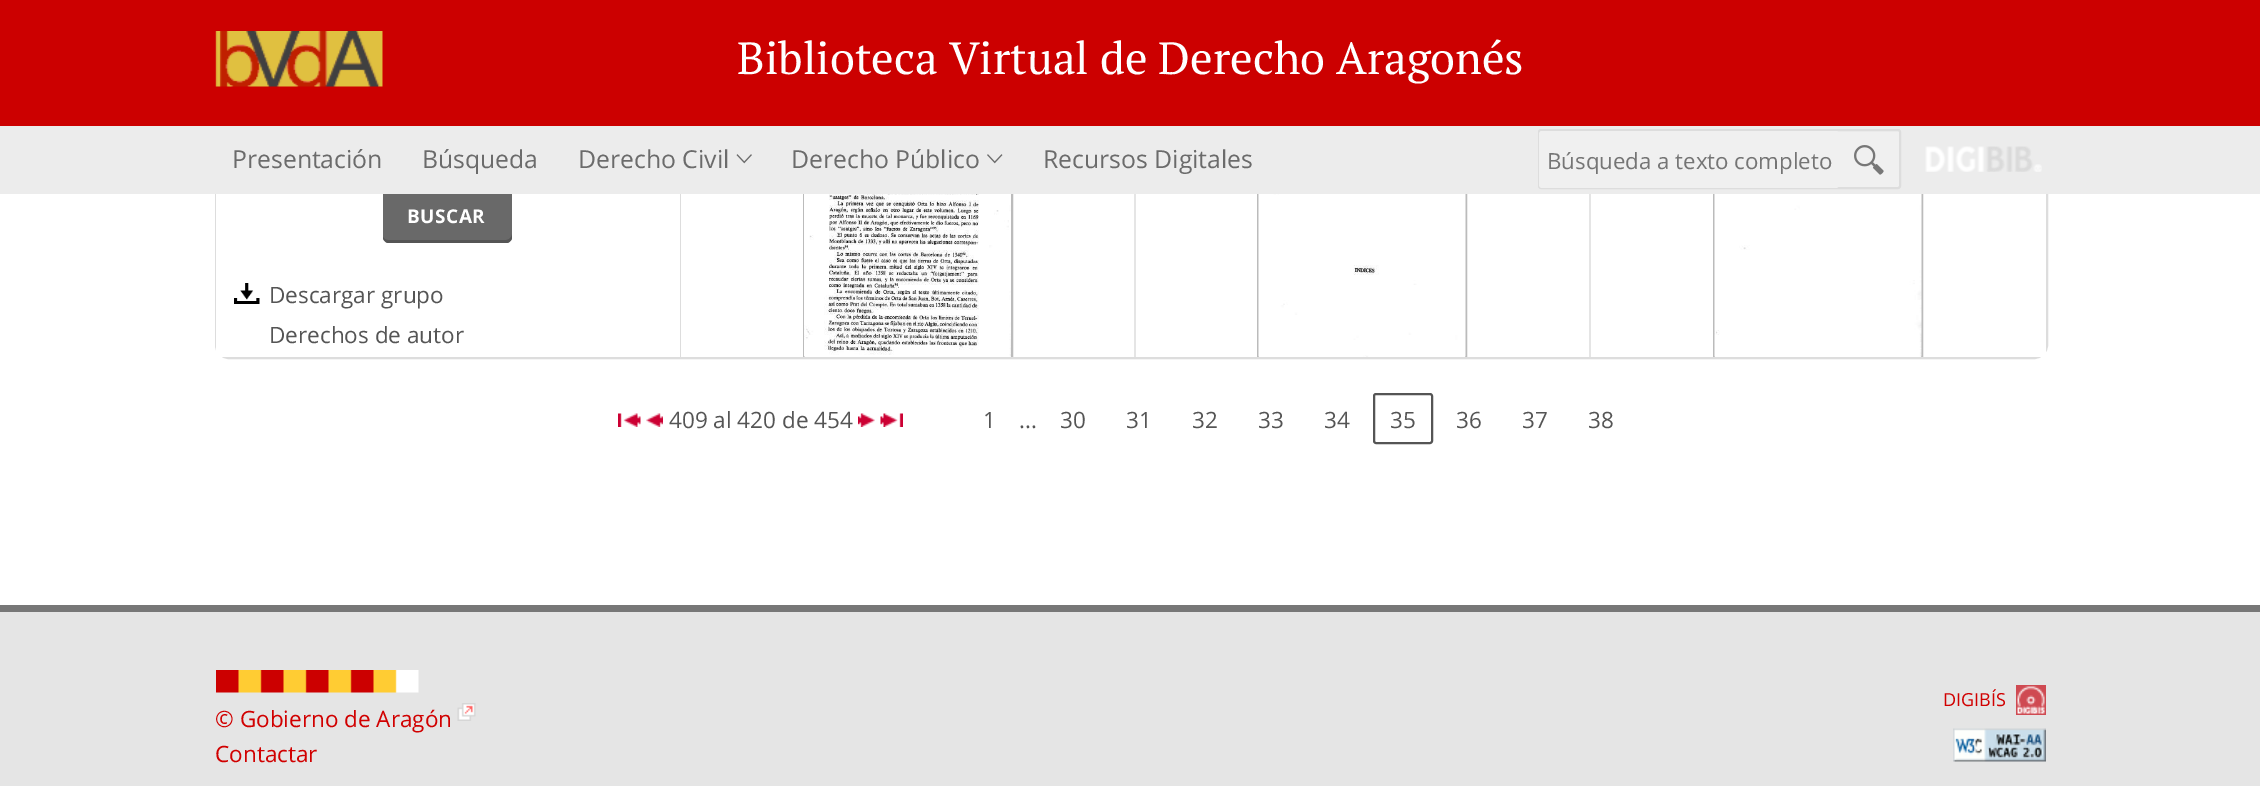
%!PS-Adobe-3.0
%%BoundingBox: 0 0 2260 786
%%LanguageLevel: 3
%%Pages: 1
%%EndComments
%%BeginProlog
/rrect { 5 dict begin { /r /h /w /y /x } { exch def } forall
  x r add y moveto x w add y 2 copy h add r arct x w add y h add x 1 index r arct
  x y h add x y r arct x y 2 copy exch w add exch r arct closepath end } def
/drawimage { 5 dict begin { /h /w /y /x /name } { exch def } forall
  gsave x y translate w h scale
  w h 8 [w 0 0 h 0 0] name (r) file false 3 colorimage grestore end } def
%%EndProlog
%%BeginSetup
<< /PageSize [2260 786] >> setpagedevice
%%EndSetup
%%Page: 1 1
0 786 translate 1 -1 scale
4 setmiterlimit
1 setgray
0 0 2260 786 rectfill
0.867 setgray
2 setlinewidth
216 -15 1831 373 13 rrect stroke
0.8 0 0 setrgbcolor
0 0 2260 126 rectfill
(images/1.raw) 215 31 168 56 drawimage
1 setgray
216 194 12 163 rectfill
0.867 setgray
680 194 1 163 rectfill
0.412 setgray
383 186 129 57 6 rrect fill
0.333 setgray
newpath 383 237 moveto 383 240 386 243 389 243 curveto 506 243 lineto 509 243 512 240 512 237 curveto 512 234 lineto 512 237 509 240 506 240 curveto 388 240 lineto 386 240 384 239 383 237 curveto closepath fill
(images/6.raw) 234 283 26 21 drawimage
1 setgray
2035 346 11 11 rectfill
0.898 setgray
1134 194 2 163 rectfill
1589 194 2 163 rectfill
gsave
681 0 1365 357 rectclip
0.733 setgray
1714 160 208 301 rectstroke
grestore
(images/9.raw) 1714 194 208 163 drawimage
(images/10.raw) 618 413 23 14 drawimage
(images/11.raw) 646 413 17 14 drawimage
(images/12.raw) 858 413 17 14 drawimage
(images/13.raw) 880 413 23 14 drawimage
0.333 setgray
1374 394 58 49 2 rrect stroke
0.898 setgray
0 612 2260 174 rectfill
0.467 setgray
0 605 2260 7 rectfill
(images/14.raw) 2016 685 30 30 drawimage
(images/15.raw) 1953 728 93 34 drawimage
(images/16.raw) 216 670 203 23 drawimage
(images/17.raw) 457 703 19 18 drawimage
/PTSerif-Regular [45 0 0 -45 0 0] selectfont
1 setgray
737 74 moveto (Biblioteca Virtual de Derecho Aragonés) show
/OpenSans-Bold [19 0 0 -19 0 0] selectfont
407 223 moveto 0.5 0 (BUSCAR) ashow
/OpenSans-Regular [22.5 0 0 -22.5 0 0] selectfont
0.333 setgray
269 303 moveto (Descargar grupo) show
269 343 moveto (Derechos de autor) show
669 428 moveto (409 al 420 de 454) show
gsave
681 0 1365 357 rectclip
0.733 setgray
804 160 208 301 rectstroke
grestore
(images/7.raw) 804 194 207 163 drawimage
983 428 moveto (1) show
1019 428 moveto (...) show
1060 428 moveto (30) show
1126 428 moveto (31) show
1192 428 moveto (32) show
1258 428 moveto (33) show
1324 428 moveto (34) show
1390 428 moveto (35) show
1456 428 moveto (36) show
gsave
681 0 1365 357 rectclip
0.733 setgray
1258 160 208 301 rectstroke
grestore
0.925 setgray
0 126 2260 68 rectfill
0.941 setgray
1539 130 361 58 2 rrect gsave fill grestore
0.867 setgray
stroke
(images/4.raw) 1854 145 30 30 drawimage
0.941 setgray
1539 131 300 57 3 rrect fill
gsave
1547 144 285 30 rectclip
/OpenSans-Regular [22.25 0 0 -22.25 0 0] selectfont
0.459 setgray
1547 169 moveto (Búsqueda a texto completo) show
grestore
/OpenSans-Regular [24.75 0 0 -24.75 0 0] selectfont
0.42 setgray
1043 168 moveto (Recursos Digitales) show
(images/3.raw) 987 154 16 10 drawimage
791 168 moveto (Derecho Público) show
(images/2.raw) 736 154 16 10 drawimage
578 168 moveto (Derecho Civil) show
422 168 moveto (Búsqueda) show
232 168 moveto (Presentación) show
(images/5.raw) 1925 146 117 26 drawimage
(images/8.raw) 1258 194 208 163 drawimage
/OpenSans-Regular [22.5 0 0 -22.5 0 0] selectfont
0.333 setgray
1522 428 moveto (37) show
1588 428 moveto (38) show
/OpenSans-Regular [18 0 0 -18 0 0] selectfont
0.82 0 0 setrgbcolor
1943 706 moveto (DIGIBÍS) show
/OpenSans-Regular [22.5 0 0 -22.5 0 0] selectfont
215 727 moveto (© Gobierno de Aragón) show
215 762 moveto (Contactar) show
showpage
%%EOF
